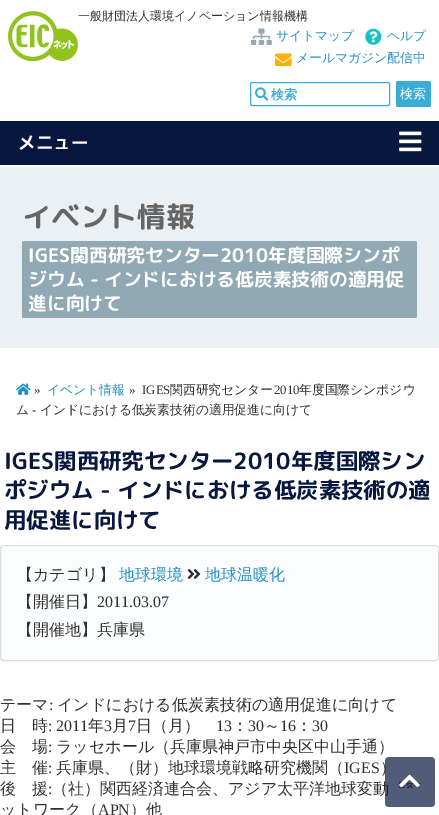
%!PS-Adobe-3.0
%%BoundingBox: 0 0 439 815
%%LanguageLevel: 3
%%Pages: 1
%%EndComments
%%BeginProlog
/setalpha { dup .setfillconstantalpha .setstrokeconstantalpha } def
/rrect { 5 dict begin { /r /h /w /y /x } { exch def } forall
  x r add y moveto x w add y 2 copy h add r arct x w add y h add x 1 index r arct
  x y h add x y r arct x y 2 copy exch w add exch r arct closepath end } def
/drawimage { 5 dict begin { /h /w /y /x /name } { exch def } forall
  gsave x y translate w h scale
  w h 8 [w 0 0 h 0 0] name (r) file false 3 colorimage grestore end } def
%%EndProlog
%%BeginSetup
<< /PageSize [439 815] /PageUsesTransparency true >> setpagedevice
%%EndSetup
%%Page: 1 1
0 .pushpdf14devicefilter
0 815 translate 1 -1 scale
4 setmiterlimit
1 setgray
0 0 439 815 rectfill
(images/1.raw) 8 11 70 50 drawimage
(images/2.raw) 251 28 21 18 drawimage
(images/3.raw) 365 28 17 17 drawimage
(images/4.raw) 275 53 17 13 drawimage
0.231 0.675 0.839 setrgbcolor
250.5 82.5 139 23 1.5 rrect stroke
(images/5.raw) 255 87 14 14 drawimage
396 81 35 26 2 rrect fill
0.027 0.09 0.243 setrgbcolor
0 121 439 44 rectfill
(images/6.raw) 399 131 23 21 drawimage
0.918 0.941 0.953 setrgbcolor
0 167 439 181 rectfill
0.569 0.663 0.71 setrgbcolor
22 241 395 77 2 rrect fill
(images/7.raw) 16 383 15 12 drawimage
0.984 0.988 0.992 setrgbcolor
0.5 545.5 438 115 3.5 rrect gsave fill grestore
0.867 setgray
stroke
(images/8.raw) 187 569 14 10 drawimage
/WenQuanYiZenHei-Medium [12 0 0 -12 0 0] selectfont
0.188 setgray
78 20 moveto (一般財団法人環境イノベーション情報機構) show
/WenQuanYiZenHei-Medium [12.8 0 0 -12.8 0 0] selectfont
0.125 0.553 0.765 setrgbcolor
276 40 moveto (サイトマップ) show
387 40 moveto (ヘルプ) show
296 62 moveto (メールマガジン配信中) show
/WenQuanYiZenHei-Bold [13 0 0 -13 0 0] selectfont
0.231 0.675 0.839 setrgbcolor
271 99 moveto (検索) show
/WenQuanYiZenHei-Medium [13 0 0 -13 0 0] selectfont
1 setgray
400 98 moveto (検索) show
/MPLUS1p-Bold [17.5 0 0 -17.5 0 0] selectfont
18 149 moveto (メニュー) show
/RoundedMplus1cBold-Bold [28.75 0 0 -28.75 0 0] selectfont
0.4 setgray
22 227 moveto (イベント情報) show
/RoundedMplus1cBold-Bold [18.75 0 0 -18.75 0 0] selectfont
1 setgray
28 262 moveto (IGES関西研究センター2010年度国際シンポ) show
28 286 moveto (ジウム - インドにおける低炭素技術の適用促) show
28 310 moveto (進に向けて) show
/LiberationSerif-Regular [12.8 0 0 -12.8 0 0] selectfont
0.188 setgray
34 394 moveto (») show
/WenQuanYiZenHei-Medium [12.8 0 0 -12.8 0 0] selectfont
0.125 0.553 0.765 setrgbcolor
47 394 moveto (イベント情報) show
/LiberationSerif-Regular [12.8 0 0 -12.8 0 0] selectfont
0.188 setgray
129 394 moveto (») show
142 394 moveto (IGES) show
/WenQuanYiZenHei-Medium [12.8 0 0 -12.8 0 0] selectfont
170 394 moveto (関西研究センター) show
/LiberationSerif-Regular [12.8 0 0 -12.8 0 0] selectfont
274 394 moveto (2010) show
/WenQuanYiZenHei-Medium [12.8 0 0 -12.8 0 0] selectfont
299 394 moveto (年度国際シンポジウ) show
16 414 moveto (ム) show
/LiberationSerif-Regular [12.8 0 0 -12.8 0 0] selectfont
32 414 moveto (-) show
/WenQuanYiZenHei-Medium [12.8 0 0 -12.8 0 0] selectfont
40 414 moveto (インドにおける低炭素技術の適用促進に向けて) show
/RoundedMplus1cBold-Bold [22.4 0 0 -22.4 0 0] selectfont
0.027 0.09 0.243 setrgbcolor
4 469 moveto (IGES関西研究センター2010年度国際シン) show
4 498 moveto (ポジウム - インドにおける低炭素技術の適) show
4 528 moveto (用促進に向けて) show
/WenQuanYiZenHei-Medium [16 0 0 -16 0 0] selectfont
0.188 setgray
17 580 moveto (【カテゴリ】) show
0.125 0.553 0.765 setrgbcolor
119 580 moveto (地球環境) show
205 580 moveto (地球温暖化) show
0.188 setgray
17 607 moveto (【開催日】) show
/LiberationSerif-Regular [16 0 0 -16 0 0] selectfont
97 607 moveto (2011.03.07) show
/WenQuanYiZenHei-Medium [16 0 0 -16 0 0] selectfont
17 635 moveto (【開催地】兵庫県) show
0 710 moveto (テーマ) show
/LiberationSerif-Regular [16 0 0 -16 0 0] selectfont
49 710 moveto (:) show
/WenQuanYiZenHei-Medium [16 0 0 -16 0 0] selectfont
57 710 moveto (インドにおける低炭素技術の適用促進に向けて) show
0 731 moveto (日　時) show
/LiberationSerif-Regular [16 0 0 -16 0 0] selectfont
48 731 moveto (: 2011) show
/WenQuanYiZenHei-Medium [16 0 0 -16 0 0] selectfont
88 731 moveto (年) show
/LiberationSerif-Regular [16 0 0 -16 0 0] selectfont
104 731 moveto (3) show
/WenQuanYiZenHei-Medium [16 0 0 -16 0 0] selectfont
112 731 moveto (月) show
/LiberationSerif-Regular [16 0 0 -16 0 0] selectfont
128 731 moveto (7) show
/WenQuanYiZenHei-Medium [16 0 0 -16 0 0] selectfont
136 731 moveto (日（月）) show
/LiberationSerif-Regular [16 0 0 -16 0 0] selectfont
216 731 moveto (13) show
/WenQuanYiZenHei-Medium [16 0 0 -16 0 0] selectfont
232 731 moveto (：) show
/LiberationSerif-Regular [16 0 0 -16 0 0] selectfont
248 731 moveto (30) show
/WenQuanYiZenHei-Medium [16 0 0 -16 0 0] selectfont
264 731 moveto (～) show
/LiberationSerif-Regular [16 0 0 -16 0 0] selectfont
280 731 moveto (16) show
/WenQuanYiZenHei-Medium [16 0 0 -16 0 0] selectfont
296 731 moveto (：) show
/LiberationSerif-Regular [16 0 0 -16 0 0] selectfont
312 731 moveto (30) show
/WenQuanYiZenHei-Medium [16 0 0 -16 0 0] selectfont
0 752 moveto (会　場) show
/LiberationSerif-Regular [16 0 0 -16 0 0] selectfont
48 752 moveto (:) show
/WenQuanYiZenHei-Medium [16 0 0 -16 0 0] selectfont
56 752 moveto (ラッセホール（兵庫県神戸市中央区中山手通）) show
0 773 moveto (主　催) show
/LiberationSerif-Regular [16 0 0 -16 0 0] selectfont
48 773 moveto (:) show
/WenQuanYiZenHei-Medium [16 0 0 -16 0 0] selectfont
56 773 moveto (兵庫県、（財）地球環境戦略研究機関（) show
/LiberationSerif-Regular [16 0 0 -16 0 0] selectfont
344 773 moveto (IGES) show
/WenQuanYiZenHei-Medium [16 0 0 -16 0 0] selectfont
380 773 moveto (）) show
0 794 moveto (後　援) show
/LiberationSerif-Regular [16 0 0 -16 0 0] selectfont
48 794 moveto (:) show
/WenQuanYiZenHei-Medium [16 0 0 -16 0 0] selectfont
52 794 moveto (（社）関西経済連合会、アジア太平洋地球変動) show
0 815 moveto (ットワーク（) show
/LiberationSerif-Regular [16 0 0 -16 0 0] selectfont
98 815 moveto (APN) show
/WenQuanYiZenHei-Medium [16 0 0 -16 0 0] selectfont
130 815 moveto (）他) show
0.7 setalpha
0.027 0.09 0.243 setrgbcolor
385 757 50 50 4 rrect fill
1 setalpha
(images/9.raw) 399 774 21 14 drawimage
.poppdf14devicefilter showpage
%%EOF
